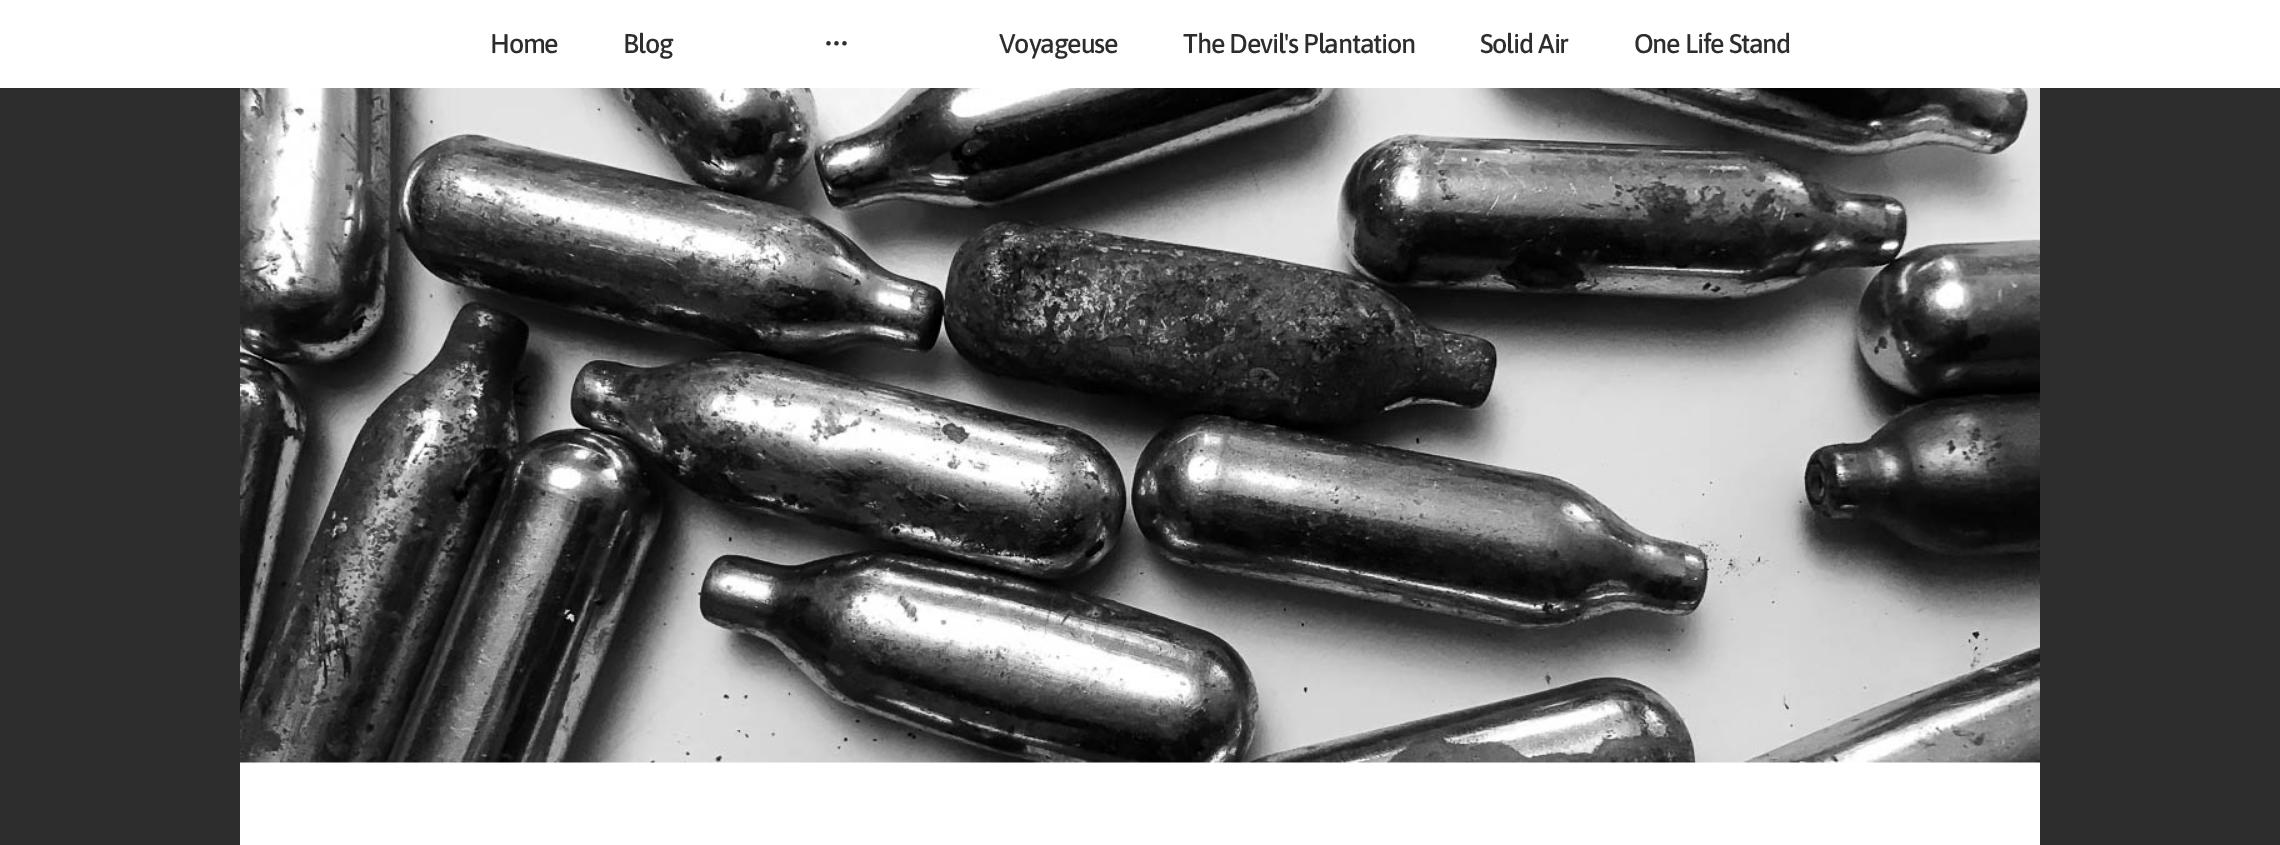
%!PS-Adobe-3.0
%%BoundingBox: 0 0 2280 845
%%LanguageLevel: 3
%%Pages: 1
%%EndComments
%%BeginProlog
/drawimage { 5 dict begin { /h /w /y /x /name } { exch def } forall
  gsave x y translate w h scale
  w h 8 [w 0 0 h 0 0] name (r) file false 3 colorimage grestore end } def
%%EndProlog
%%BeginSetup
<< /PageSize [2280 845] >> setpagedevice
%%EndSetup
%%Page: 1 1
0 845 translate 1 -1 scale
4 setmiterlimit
0.176 setgray
0 0 2280 845 rectfill
1 setgray
0 0 2280 88 rectfill
240 762 1800 83 rectfill
(images/1.raw) 240 88 1800 675 drawimage
/Asap-Medium [27 0 0 -27 0 0] selectfont
0.176 setgray
490 53 moveto -1.25 0 (Home) ashow
623 53 moveto -1.25 0 (Blog) ashow
824 53 moveto -1.25 0 (•••) ashow
999 53 moveto -1.25 0 (Voyageuse) ashow
1183 53 moveto -1.25 0 (The Devil's Plantation) ashow
1480 53 moveto -1.25 0 (Solid Air) ashow
1634 53 moveto -1.25 0 (One Life Stand) ashow
showpage
%%EOF
